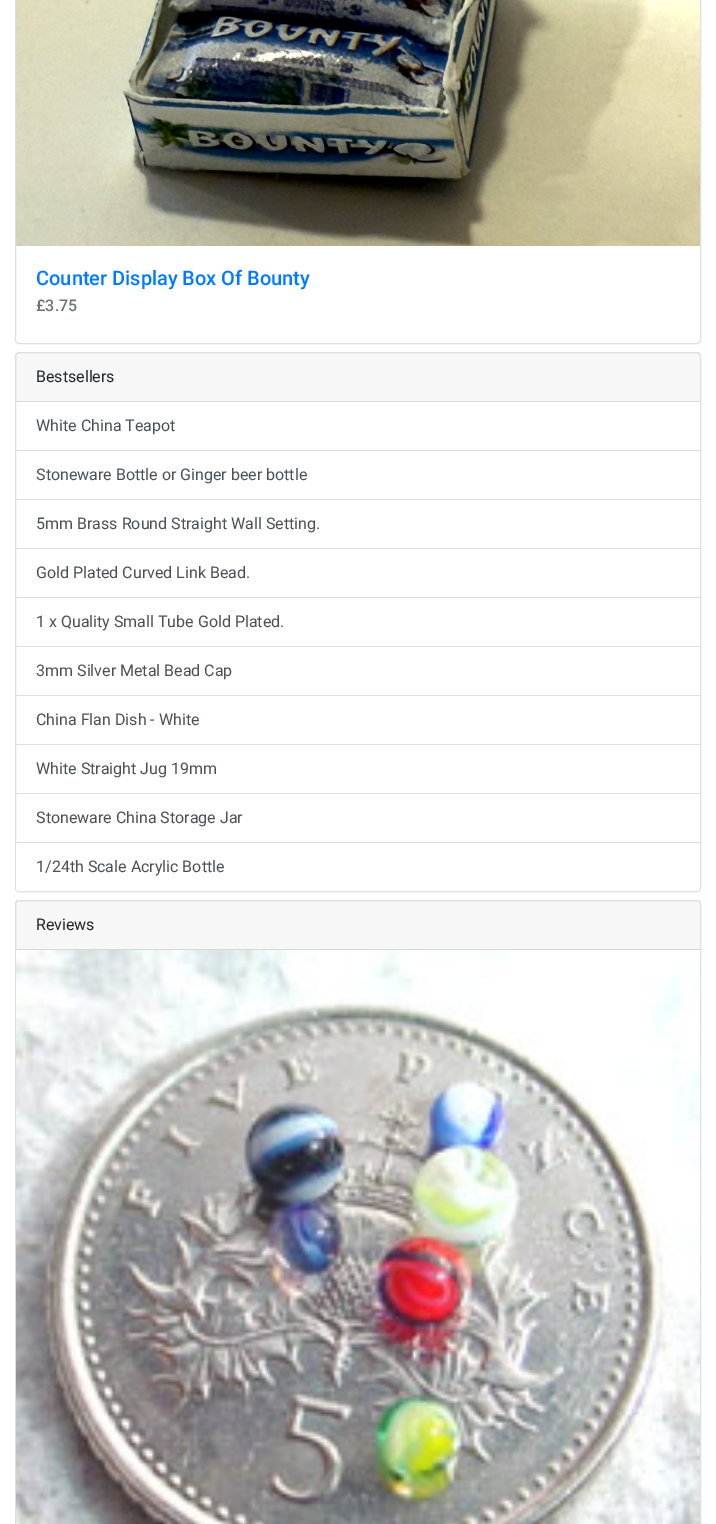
%!PS-Adobe-3.0
%%BoundingBox: 0 0 716 1524
%%LanguageLevel: 3
%%Pages: 1
%%EndComments
%%BeginProlog
/setalpha { dup .setfillconstantalpha .setstrokeconstantalpha } def
/rrect { 5 dict begin { /r /h /w /y /x } { exch def } forall
  x r add y moveto x w add y 2 copy h add r arct x w add y h add x 1 index r arct
  x y h add x y r arct x y 2 copy exch w add exch r arct closepath end } def
/drawimage { 5 dict begin { /h /w /y /x /name } { exch def } forall
  gsave x y translate w h scale
  w h 8 [w 0 0 h 0 0] name (r) file false 3 colorimage grestore end } def
%%EndProlog
%%BeginSetup
<< /PageSize [716 1524] /PageUsesTransparency true >> setpagedevice
%%EndSetup
%%Page: 1 1
0 .pushpdf14devicefilter
0 1524 translate 1 -1 scale
4 setmiterlimit
1 setgray
0 0 716 1524 rectfill
0.875 setgray
15.5 -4.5 685 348 3.5 rrect stroke
(images/1.raw) 16 0 684 246 drawimage
15.5 352.5 685 539 3.5 rrect stroke
0.03 setalpha
0 setgray
16 353 684 48 rectfill
1 setalpha
0.847 setgray
16 401 684 1 rectfill
0.875 setgray
16 450 684 1 rectfill
16 499 684 1 rectfill
16 548 684 1 rectfill
16 597 684 1 rectfill
16 646 684 1 rectfill
16 695 684 1 rectfill
16 744 684 1 rectfill
16 793 684 1 rectfill
16 842 684 1 rectfill
1 setgray
newpath 16 843 moveto 700 843 lineto 700 888 lineto 700 889.5 698.5 891 697 891 curveto 19 891 lineto 17.5 891 16 889.5 16 888 curveto closepath fill
0.875 setgray
15.5 900.5 685 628 3.5 rrect stroke
0.03 setalpha
0 setgray
16 901 684 48 rectfill
1 setalpha
0.847 setgray
16 949 684 1 rectfill
(images/2.raw) 16 950 684 574 drawimage
/Roboto-Medium [20 0 0 -20 0 0] selectfont
0 0.482 1 setrgbcolor
36 285 moveto (Counter Display Box Of Bounty) show
/Roboto-Medium [16 0 0 -16 0 0] selectfont
0.424 0.459 0.49 setrgbcolor
36 311 moveto (£3.75) show
/Roboto-Regular [16 0 0 -16 0 0] selectfont
0.129 0.145 0.161 setrgbcolor
36 382 moveto (Bestsellers) show
0.286 0.314 0.341 setrgbcolor
36 431 moveto (White China Teapot) show
36 480 moveto (Stoneware Bottle or Ginger beer bottle) show
36 529 moveto (5mm Brass Round Straight Wall Setting.) show
36 578 moveto (Gold Plated Curved Link Bead.) show
36 627 moveto (1 x Quality Small Tube Gold Plated.) show
36 676 moveto (3mm Silver Metal Bead Cap) show
36 725 moveto (China Flan Dish - White) show
36 774 moveto (White Straight Jug 19mm) show
36 823 moveto (Stoneware China Storage Jar) show
36 872 moveto (1/24th Scale Acrylic Bottle) show
0.129 0.145 0.161 setrgbcolor
36 930 moveto (Reviews) show
.poppdf14devicefilter showpage
%%EOF
